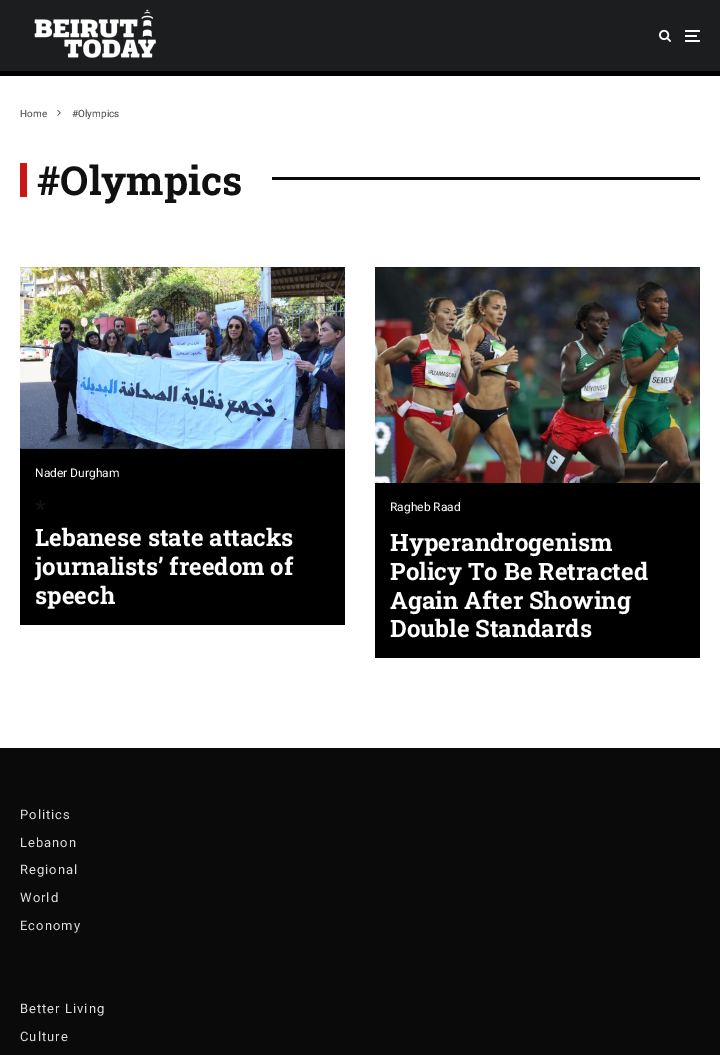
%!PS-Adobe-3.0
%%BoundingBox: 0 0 720 1055
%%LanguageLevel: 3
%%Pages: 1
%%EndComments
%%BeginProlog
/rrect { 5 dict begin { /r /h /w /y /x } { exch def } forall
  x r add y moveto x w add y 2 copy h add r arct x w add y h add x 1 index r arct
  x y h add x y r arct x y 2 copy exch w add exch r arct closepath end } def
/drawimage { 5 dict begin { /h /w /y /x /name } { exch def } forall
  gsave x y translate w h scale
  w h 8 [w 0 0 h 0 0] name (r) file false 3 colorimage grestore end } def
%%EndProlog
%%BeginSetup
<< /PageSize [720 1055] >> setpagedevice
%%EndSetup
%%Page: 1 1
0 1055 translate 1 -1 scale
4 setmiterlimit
1 setgray
0 0 720 1055 rectfill
0.11 0.114 0.118 setrgbcolor
0 0 720 71 rectfill
0 setgray
0 71 720 5 rectfill
(images/1.raw) 34 9 122 49 drawimage
(images/2.raw) 659 29 12 13 drawimage
1 setgray
685 35 12 2 1 rrect fill
685 30 15 2 1 rrect fill
685 40 15 2 1 rrect fill
(images/3.raw) 57 110 4 6 drawimage
0.788 0.09 0.09 setrgbcolor
20 163 7 34 rectfill
0.039 setgray
272 177 428 3 rectfill
0 setgray
20 267 325 358 rectfill
(images/4.raw) 20 267 325 182 drawimage
375 267 325 391 rectfill
(images/5.raw) 375 267 325 216 drawimage
0.039 setgray
0 748 720 307 rectfill
/Roboto-Regular [10 0 0 -10 0 0] selectfont
0.267 setgray
20 117 moveto (Home) show
72 117 moveto (#Olympics) show
/RobotoSlab-Bold [40 0 0 -40 0 0] selectfont
0.067 setgray
37 195 moveto (#Olympics) show
/Roboto-Regular [12 0 0 -12 0 0] selectfont
1 setgray
35 477 moveto (Nader Durgham) show
/RobotoSlab-Bold [24 0 0 -24 0 0] selectfont
0.067 setgray
35 517 moveto (*) show
1 setgray
35 546 moveto (Lebanese state attacks) show
35 575 moveto (journalists’ freedom of) show
35 604 moveto (speech) show
/Roboto-Regular [12 0 0 -12 0 0] selectfont
390 511 moveto (Ragheb Raad) show
/RobotoSlab-Bold [24 0 0 -24 0 0] selectfont
390 551 moveto (Hyperandrogenism) show
390 580 moveto (Policy To Be Retracted) show
390 609 moveto (Again After Showing) show
390 637 moveto (Double Standards) show
/Roboto-Regular [13 0 0 -13 0 0] selectfont
0.867 0.871 0.871 setrgbcolor
20 819 moveto 1 0 (Politics) ashow
20 847 moveto 1 0 (Lebanon) ashow
20 874 moveto 1 0 (Regional) ashow
20 902 moveto 1 0 (World) ashow
20 930 moveto 1 0 (Economy) ashow
20 1013 moveto 1 0 (Better Living) ashow
20 1041 moveto 1 0 (Culture) ashow
showpage
%%EOF
